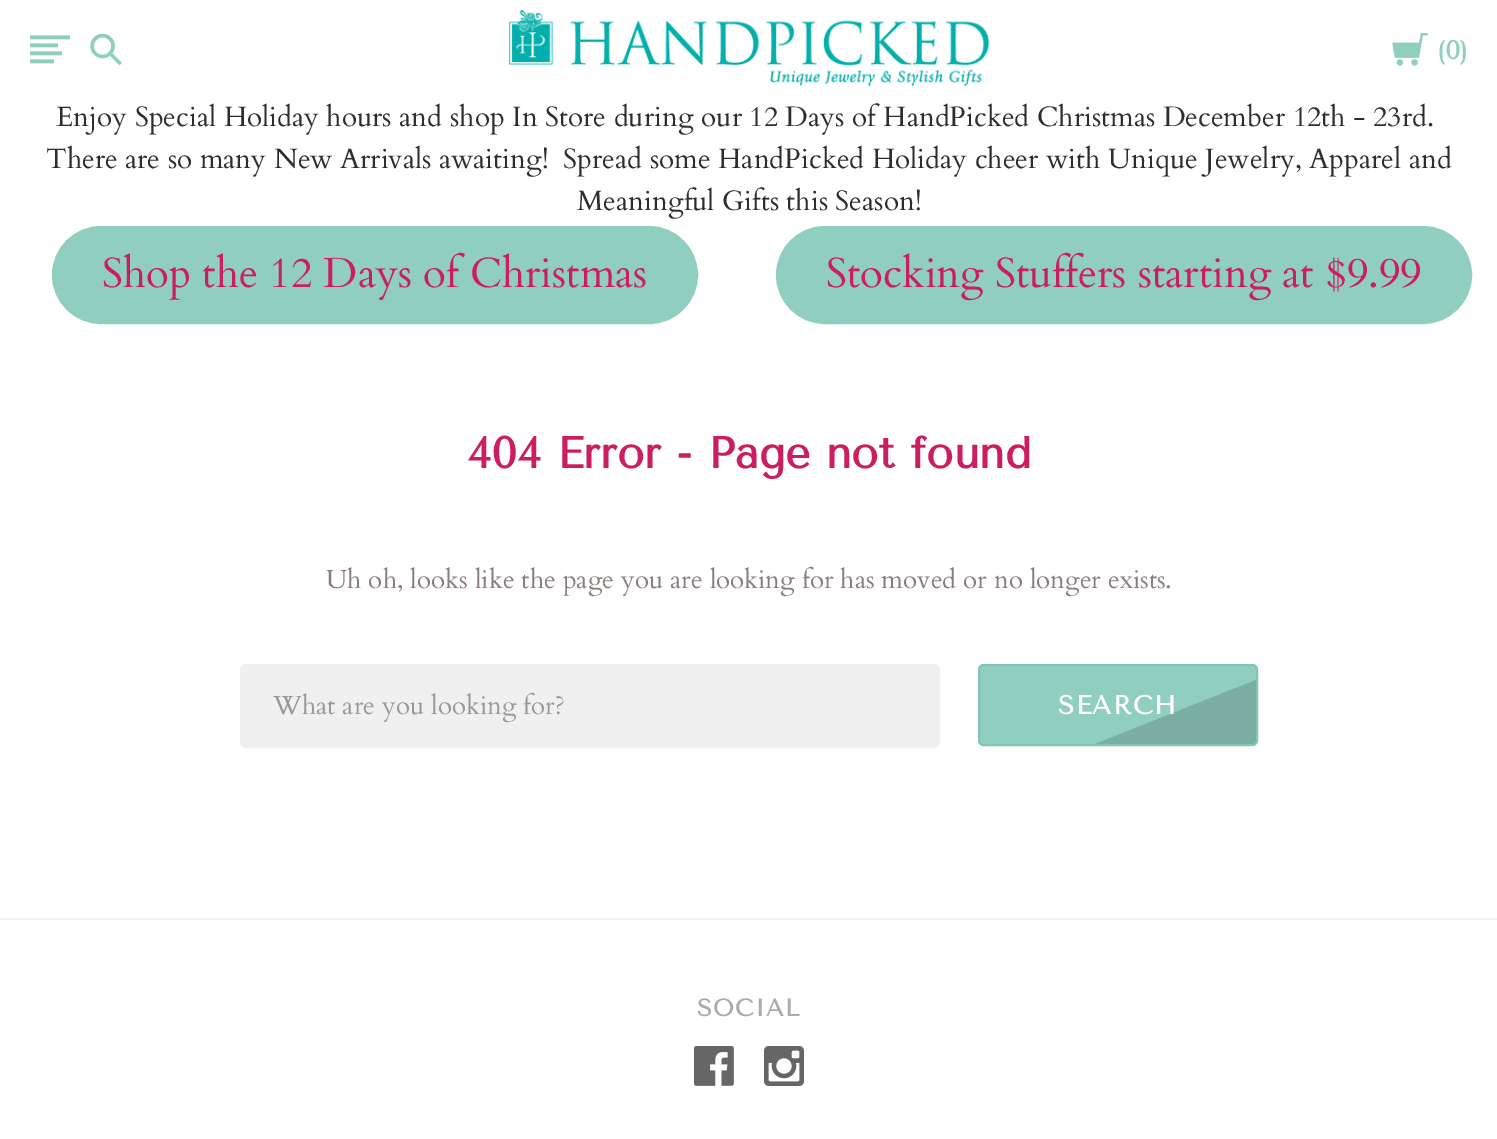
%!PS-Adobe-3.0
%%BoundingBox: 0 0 1497 1139
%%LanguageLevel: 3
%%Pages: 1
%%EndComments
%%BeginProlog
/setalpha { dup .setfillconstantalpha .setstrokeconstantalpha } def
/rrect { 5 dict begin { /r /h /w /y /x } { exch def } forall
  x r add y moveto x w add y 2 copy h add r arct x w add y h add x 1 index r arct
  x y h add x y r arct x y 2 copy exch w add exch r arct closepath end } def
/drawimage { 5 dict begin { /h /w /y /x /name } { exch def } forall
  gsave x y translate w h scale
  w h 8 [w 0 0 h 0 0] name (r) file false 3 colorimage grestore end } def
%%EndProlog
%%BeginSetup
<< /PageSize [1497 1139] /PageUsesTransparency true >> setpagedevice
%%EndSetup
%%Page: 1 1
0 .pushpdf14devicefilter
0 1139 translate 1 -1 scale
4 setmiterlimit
1 setgray
0 0 1497 1139 rectfill
(images/1.raw) 509 10 480 76 drawimage
(images/2.raw) 30 35 40 29 drawimage
(images/3.raw) 90 34 32 31 drawimage
(images/4.raw) 1392 33 36 33 drawimage
0.565 0.808 0.749 setrgbcolor
53 227 644 96 48 rrect gsave fill grestore
2 setlinewidth
stroke
777 227 694 96 48 rrect gsave fill grestore
stroke
0.941 setgray
241 665 698 82 5 rrect gsave fill grestore
stroke
0.565 0.808 0.749 setrgbcolor
978 664 280 82 6 rrect fill
0.15 setalpha
0 setgray
newpath 1256 744 moveto 1253 746 lineto 1090 746 lineto 1256 680 lineto closepath fill
1 setalpha
0.494 0.776 0.71 setrgbcolor
979 665 278 80 5 rrect stroke
0.949 setgray
0 918 1497 2 rectfill
(images/5.raw) 694 1046 40 40 drawimage
(images/6.raw) 764 1046 40 40 drawimage
/TenorSans-Bold [26 0 0 -26 0 0] selectfont
0.565 0.808 0.749 setrgbcolor
1437 59 moveto (\(0\)) show
/Cardo-Regular [28 0 0 -28 0 0] selectfont
0.176 setgray
56 126 moveto (Enjoy Special Holiday hours and shop In Store during our 12 Days of HandPicked Christmas December 12th - 23rd.) show
46 168 moveto (There are so many New Arrivals awaiting!  Spread some HandPicked Holiday cheer with Unique Jewelry, Apparel and) show
577 210 moveto (Meaningful Gifts this Season!) show
/Cardo-Regular [42 0 0 -42 0 0] selectfont
0.796 0.118 0.38 setrgbcolor
102 287 moveto (Shop the 12 Days of Christmas) show
826 287 moveto (Stocking Stuffers starting at $9.99) show
/TenorSans-Bold [44 0 0 -44 0 0] selectfont
467 468 moveto (404 Error - Page not found) show
/Cardo-Regular [26 0 0 -26 0 0] selectfont
0.549 0.486 0.486 setrgbcolor
326 588 moveto (Uh oh, looks like the page you are looking for has moved or no longer exists.) show
0.596 setgray
273 714 moveto (What are you looking for?) show
/TenorSans-Bold [26 0 0 -26 0 0] selectfont
1 setgray
1058 714 moveto 1.25 0 (SEARCH) ashow
/TenorSans-Bold [24 0 0 -24 0 0] selectfont
0.671 setgray
697 1016 moveto 1.25 0 (SOCIAL) ashow
.poppdf14devicefilter showpage
%%EOF
